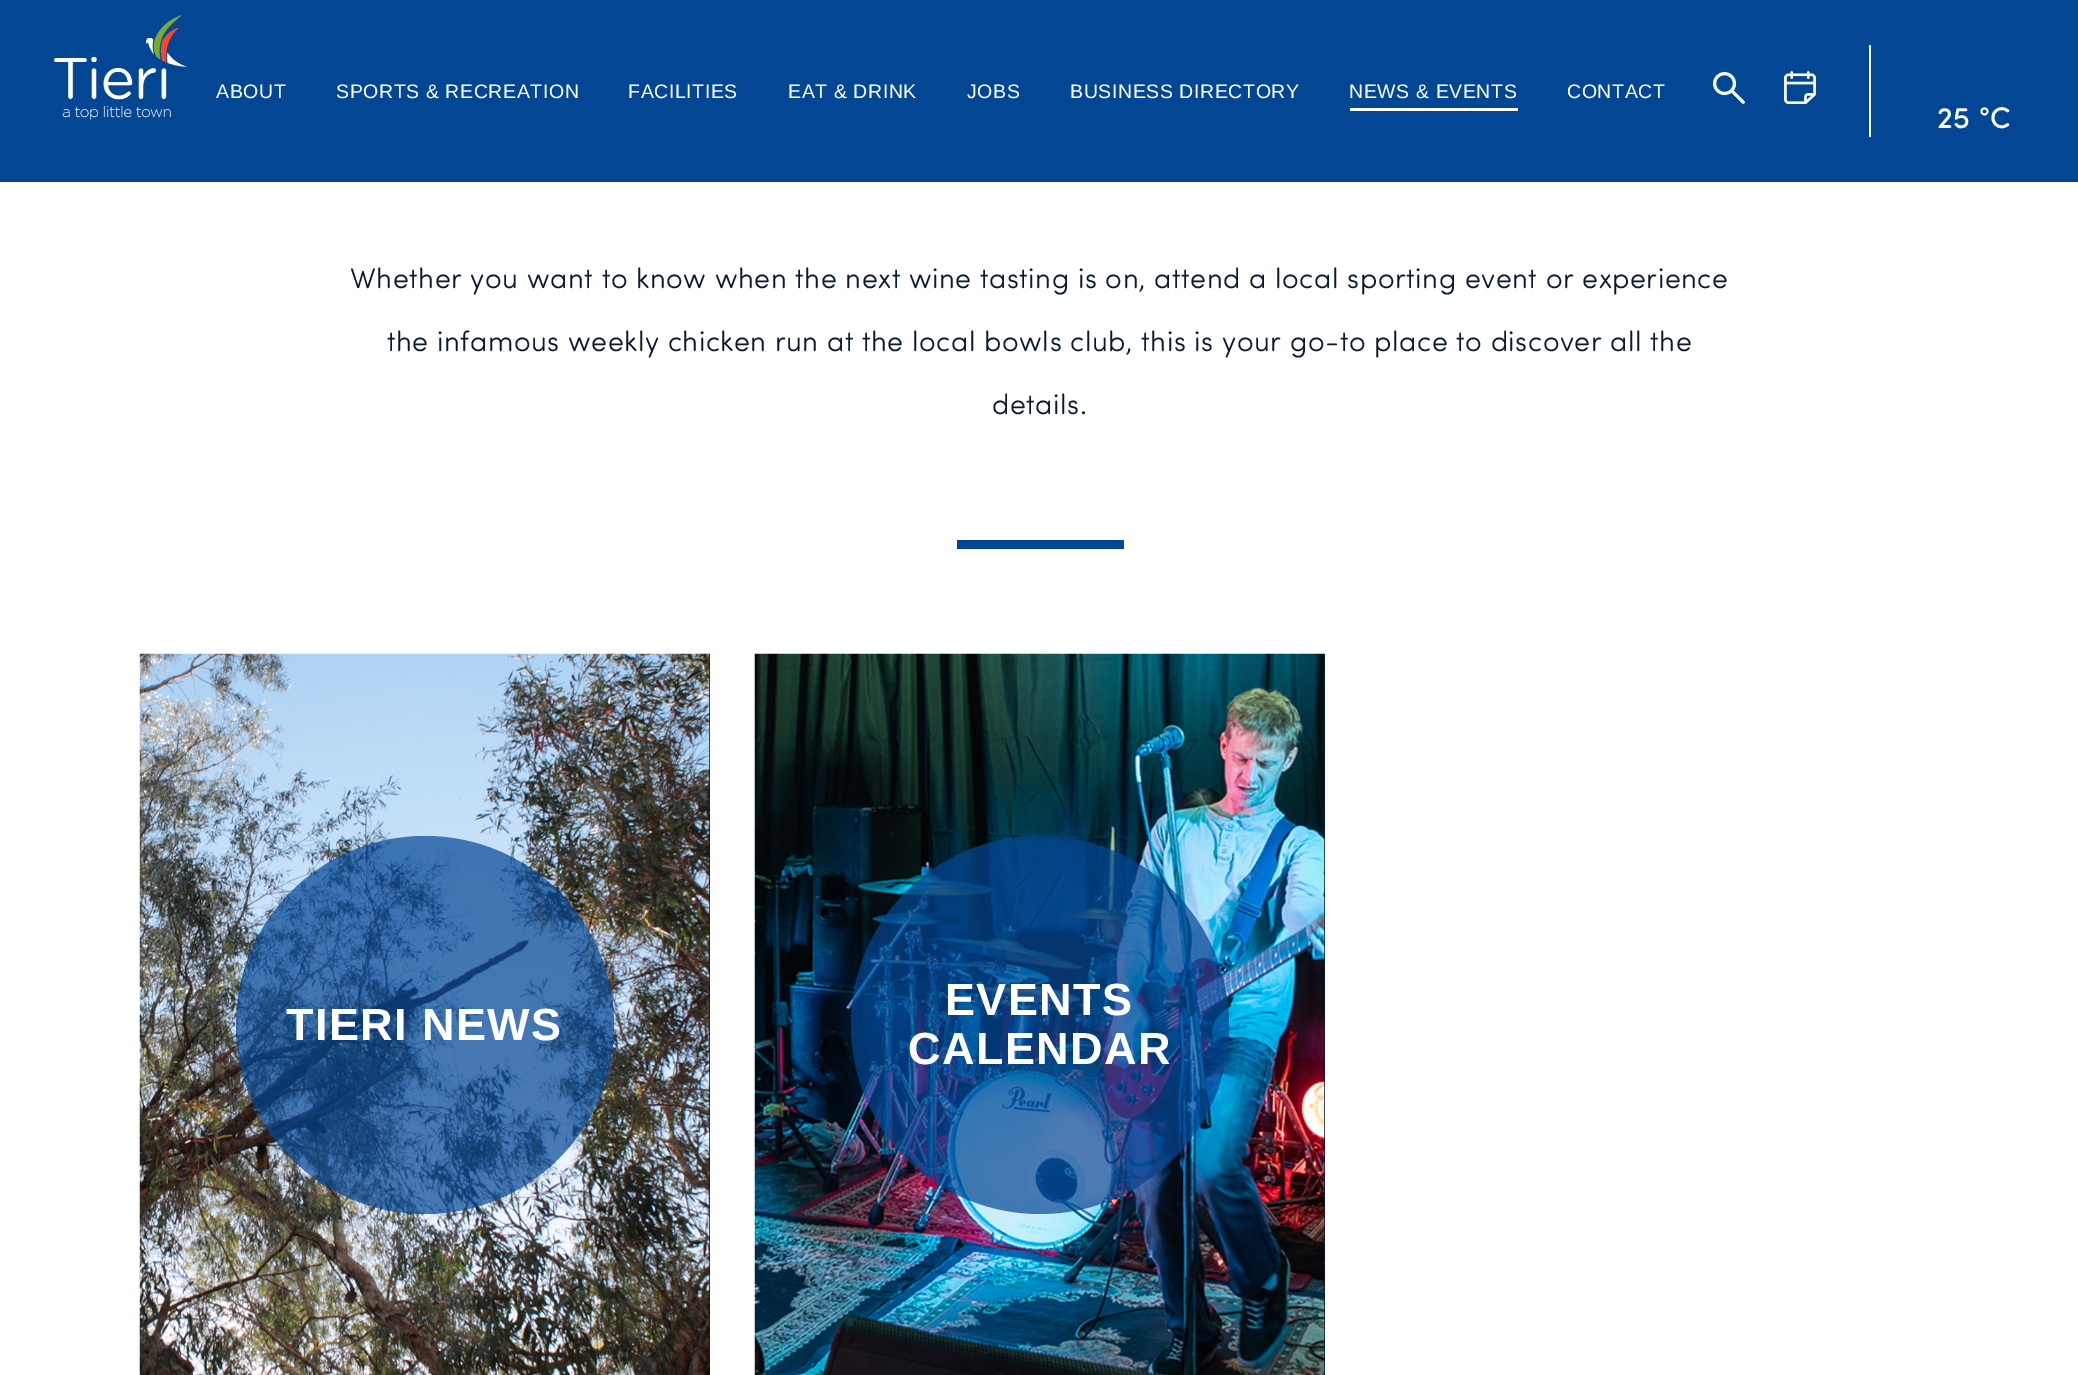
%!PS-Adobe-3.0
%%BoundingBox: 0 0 2078 1375
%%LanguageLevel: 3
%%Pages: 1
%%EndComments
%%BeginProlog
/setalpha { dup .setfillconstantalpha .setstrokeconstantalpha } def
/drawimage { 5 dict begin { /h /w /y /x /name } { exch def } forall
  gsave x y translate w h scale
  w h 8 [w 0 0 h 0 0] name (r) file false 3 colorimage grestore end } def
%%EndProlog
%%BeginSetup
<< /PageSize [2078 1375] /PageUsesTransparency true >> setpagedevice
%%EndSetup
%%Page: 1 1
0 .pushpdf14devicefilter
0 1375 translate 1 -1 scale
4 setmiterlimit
1 setgray
0 0 2078 1375 rectfill
0.012 0.275 0.58 setrgbcolor
0 0 2078 182 rectfill
(images/1.raw) 54 15 134 105 drawimage
1 setgray
1350 108 168 3 rectfill
(images/2.raw) 1713 72 32 32 drawimage
(images/3.raw) 1784 71 32 33 drawimage
1869 45 2 92 rectfill
0.012 0.275 0.58 setrgbcolor
957 540 167 9 rectfill
0.031 0.102 0.184 setrgbcolor
709 654 1 721 rectfill
(images/4.raw) 139 653 571 722 drawimage
0.7 setalpha
0.012 0.275 0.58 setrgbcolor
newpath 425 1025 189 0 360 arc closepath fill
1 setalpha
0.031 0.102 0.184 setrgbcolor
1324 654 1 721 rectfill
(images/5.raw) 754 653 571 722 drawimage
0.7 setalpha
0.012 0.275 0.58 setrgbcolor
newpath 1040 1025 189 0 360 arc closepath fill
/LiberationSans-Regular [19.5 0 0 -19.5 0 0] selectfont
1 setalpha
1 setgray
216 98 moveto 0.6 0 (ABOUT) ashow
336 98 moveto 0.6 0 (SPORTS & RECREATION) ashow
628 98 moveto 0.6 0 (FACILITIES) ashow
788 98 moveto 0.6 0 (EAT & DRINK) ashow
967 98 moveto 0.6 0 (JOBS) ashow
1070 98 moveto 0.6 0 (BUSINESS DIRECTORY) ashow
1349 98 moveto 0.6 0 (NEWS & EVENTS) ashow
1567 98 moveto 0.6 0 (CONTACT) ashow
/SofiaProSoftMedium-Medium [30 0 0 -30 0 0] selectfont
1937 128 moveto 0.5 0 (25 °C) ashow
/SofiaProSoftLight-Light [28.5 0 0 -28.5 0 0] selectfont
0.031 0.102 0.184 setrgbcolor
350 288 moveto 0.57 0 (Whether you want to know when the next wine tasting is on, attend a local sporting event or experience) ashow
387 351 moveto 0.57 0 (the infamous weekly chicken run at the local bowls club, this is your go-to place to discover all the) ashow
992 414 moveto 0.57 0 (details.) ashow
/LiberationSans-Bold [45 0 0 -45 0 0] selectfont
1 setgray
286 1040 moveto 1.4 0 (TIERI NEWS) ashow
945 1015 moveto 1.4 0 (EVENTS) ashow
908 1064 moveto 1.4 0 (CALENDAR) ashow
.poppdf14devicefilter showpage
%%EOF
